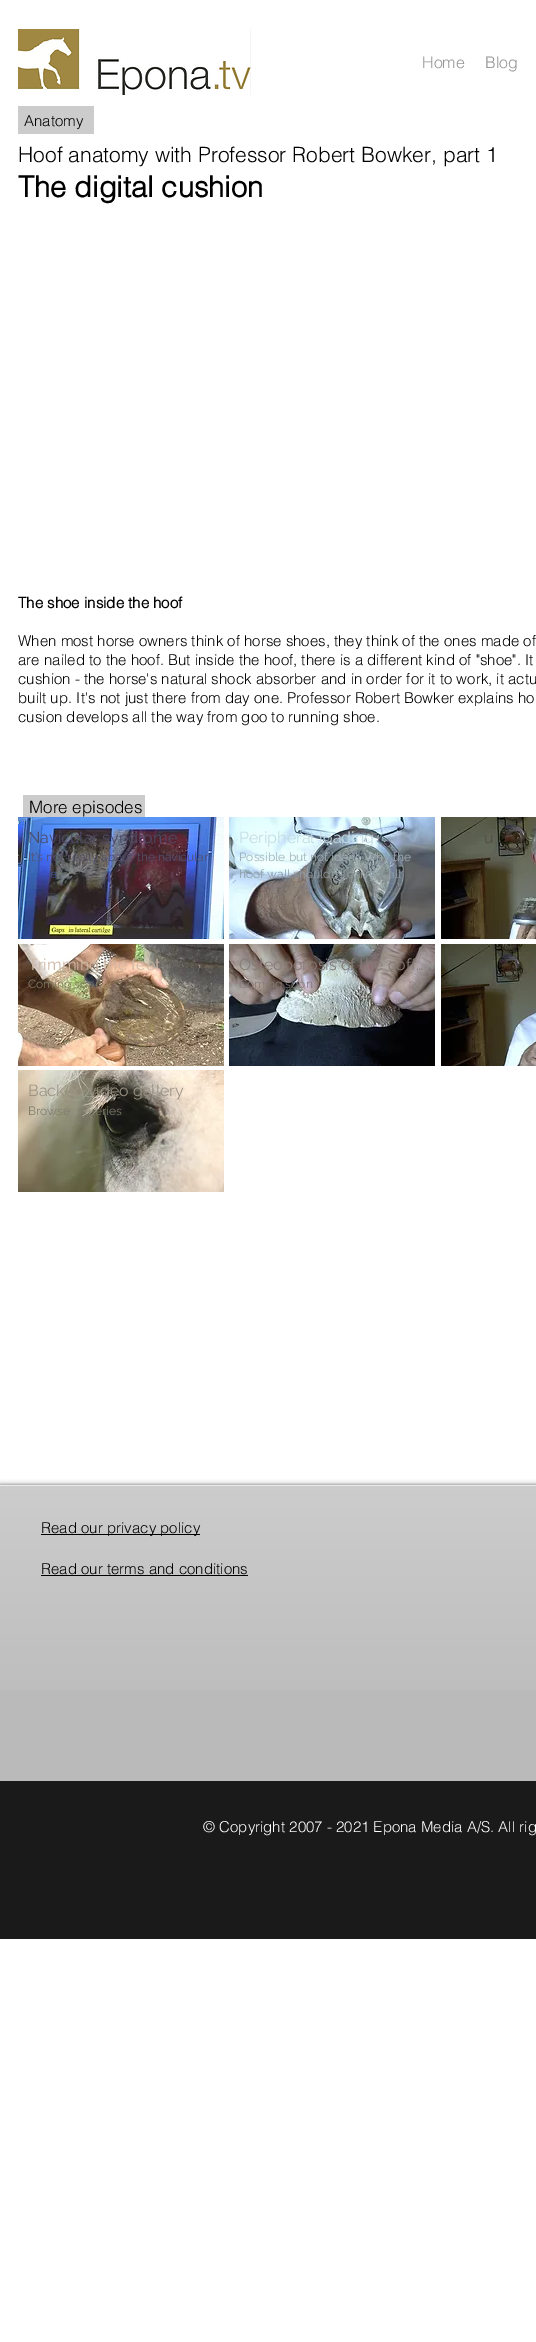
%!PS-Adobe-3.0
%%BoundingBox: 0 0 536 2342
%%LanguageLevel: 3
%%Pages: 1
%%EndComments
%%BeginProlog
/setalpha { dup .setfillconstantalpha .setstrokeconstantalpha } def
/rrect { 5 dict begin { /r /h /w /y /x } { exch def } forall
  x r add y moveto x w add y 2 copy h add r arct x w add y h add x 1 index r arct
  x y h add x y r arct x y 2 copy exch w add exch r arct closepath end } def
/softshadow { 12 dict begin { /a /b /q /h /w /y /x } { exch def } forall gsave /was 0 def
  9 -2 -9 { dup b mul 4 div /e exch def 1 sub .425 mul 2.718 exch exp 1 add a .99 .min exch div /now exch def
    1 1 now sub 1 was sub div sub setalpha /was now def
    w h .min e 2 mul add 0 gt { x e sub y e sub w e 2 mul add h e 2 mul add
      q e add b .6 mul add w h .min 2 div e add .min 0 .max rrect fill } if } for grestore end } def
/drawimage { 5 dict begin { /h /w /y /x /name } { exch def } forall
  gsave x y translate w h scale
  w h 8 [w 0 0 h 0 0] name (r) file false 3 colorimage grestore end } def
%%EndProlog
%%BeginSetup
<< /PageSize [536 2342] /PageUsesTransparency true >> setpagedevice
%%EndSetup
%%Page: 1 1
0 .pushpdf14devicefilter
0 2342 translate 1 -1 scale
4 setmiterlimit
1 setgray
0 0 536 2342 rectfill
(images/1.raw) 18 29 233 66 drawimage
0.804 0.8 0.8 setrgbcolor
18 106 76 28 rectfill
23 795 122 22 rectfill
(images/2.raw) 18 817 206 122 drawimage
(images/3.raw) 229 817 206 122 drawimage
(images/4.raw) 441 817 95 122 drawimage
(images/5.raw) 18 944 206 122 drawimage
(images/6.raw) 229 944 206 122 drawimage
(images/7.raw) 441 944 95 122 drawimage
(images/8.raw) 18 1070 206 122 drawimage
0 setgray
0 1485 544 448 0 2.5 0.6 softshadow
0.729 setgray
0 1486 536 295 rectfill
(images/9.raw) 0 1486 536 204 drawimage
0.922 setgray
0 1485 536 1 rectfill
0 setgray
41 1534 159 1 rectfill
41 1575 207 1 rectfill
0.102 setgray
0 1781 536 158 rectfill
/helvetica-Light [16 0 0 -16 0 0] selectfont
0.588 0.584 0.584 setrgbcolor
422 68 moveto (Home) show
485 68 moveto (Blog) show
/helvetica-Light [15 0 0 -15 0 0] selectfont
0 setgray
24 126 moveto (Anatomy) show
/helvetica-Light [21 0 0 -21 0 0] selectfont
18 162 moveto (Hoof anatomy with Professor Robert Bowker, part 1) show
/helvetica-Bold [29 0 0 -29 0 0] selectfont
18 197 moveto (The digital cushion) show
/helvetica-Bold [15 0 0 -15 0 0] selectfont
18 608 moveto (The shoe inside the hoof) show
/helvetica-Light [15 0 0 -15 0 0] selectfont
18 646 moveto (When most horse owners think of horse shoes, they think of the ones made of) show
18 665 moveto (are nailed to the hoof. But inside the hoof, there is a different kind of "shoe". It) show
18 684 moveto (cushion - the horse's natural shock absorber and in order for it to work, it actu) show
18 703 moveto (built up. It's not just there from day one. Professor Robert Bowker explains ho) show
18 722 moveto (cusion develops all the way from goo to running shoe.) show
/helvetica-Light [17 0 0 -17 0 0] selectfont
29 813 moveto (More episodes) show
/Raleway-Regular [16 0 0 -16 0 0] selectfont
0.306 0.29 0.4 setrgbcolor
28 843 moveto (Navicular syndrome) show
/Raleway-Regular [12 0 0 -12 0 0] selectfont
0.325 0.314 0.439 setrgbcolor
28 861 moveto (It's not really about the navicular) show
0.22 0.31 0.588 setrgbcolor
50 878 moveto (e) show
/Raleway-Regular [16 0 0 -16 0 0] selectfont
0.769 0.855 0.882 setrgbcolor
239 843 moveto (Peripheral loading) show
/Raleway-Regular [12 0 0 -12 0 0] selectfont
0.631 0.694 0.714 setrgbcolor
239 861 moveto (Possible but not ideal. Why the) show
0.557 0.608 0.639 setrgbcolor
239 878 moveto (hoof wall shouldn't carry it all) show
/Raleway-Regular [16 0 0 -16 0 0] selectfont
0.306 0.306 0.251 setrgbcolor
484 843 moveto (u) show
0.808 0.718 0.651 setrgbcolor
28 970 moveto (Trimming the feet) show
/Raleway-Regular [12 0 0 -12 0 0] selectfont
0.514 0.486 0.369 setrgbcolor
28 988 moveto (Coming soon) show
/Raleway-Regular [16 0 0 -16 0 0] selectfont
0.522 0.482 0.467 setrgbcolor
239 970 moveto (Osteoporosis of the coff…) show
/Raleway-Regular [12 0 0 -12 0 0] selectfont
239 988 moveto (Coming soon) show
/Raleway-Regular [16 0 0 -16 0 0] selectfont
0.604 0.576 0.518 setrgbcolor
28 1096 moveto (Back to video gallery) show
/Raleway-Regular [12 0 0 -12 0 0] selectfont
0.498 0.486 0.42 setrgbcolor
28 1115 moveto (Browse) show
95 1115 moveto (eries) show
/helvetica-Light [15 0 0 -15 0 0] selectfont
0 setgray
41 1533 moveto (Read our privacy policy) show
41 1574 moveto (Read our terms and conditions) show
1 setgray
203 1832 moveto (© Copyright 2007 - 2021 Epona Media A/S. All rig) show
.poppdf14devicefilter showpage
%%EOF
